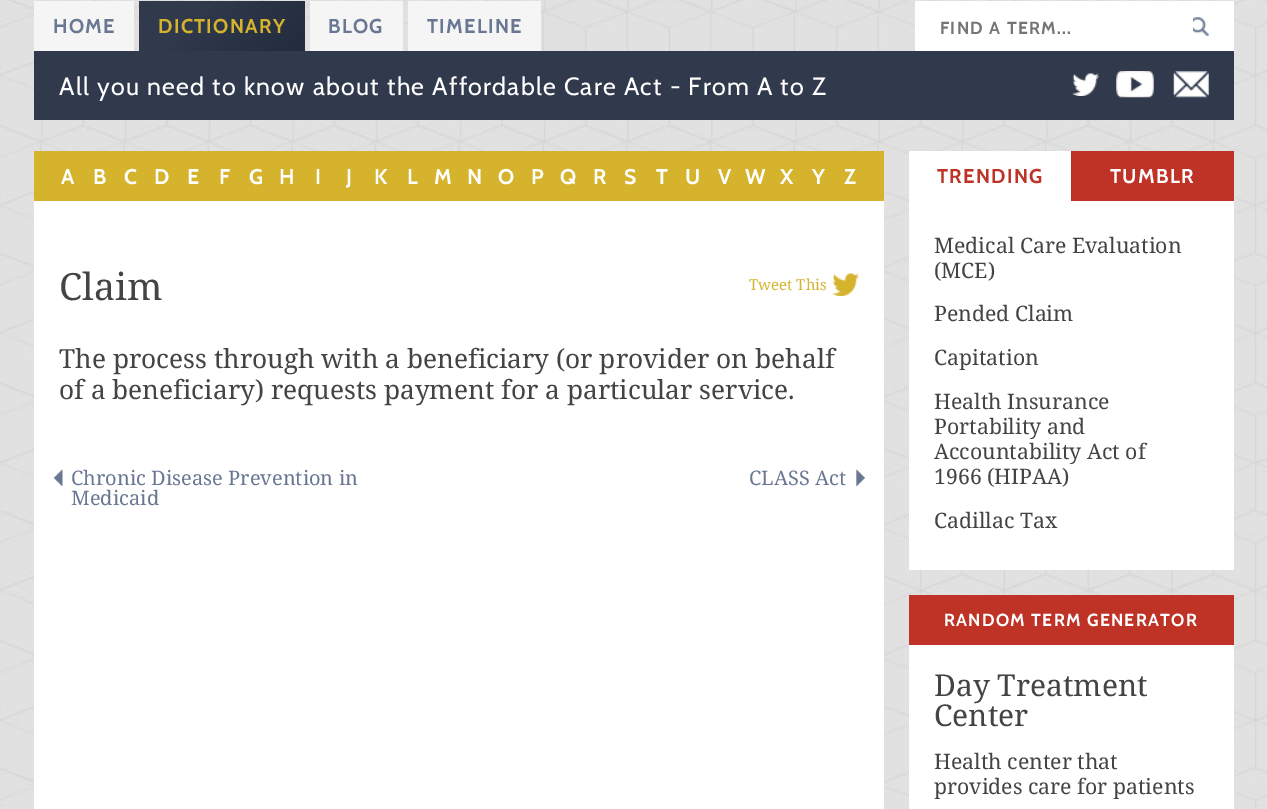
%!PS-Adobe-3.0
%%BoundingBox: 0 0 1267 809
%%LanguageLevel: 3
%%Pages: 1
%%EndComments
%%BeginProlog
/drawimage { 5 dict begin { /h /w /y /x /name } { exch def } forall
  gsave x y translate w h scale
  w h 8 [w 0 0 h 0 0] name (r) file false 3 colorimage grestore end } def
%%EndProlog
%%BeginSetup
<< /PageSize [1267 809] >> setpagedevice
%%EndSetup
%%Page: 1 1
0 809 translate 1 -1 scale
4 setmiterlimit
1 setgray
0 0 1267 809 rectfill
(images/1.raw) 0 0 1267 809 drawimage
0.961 setgray
34 1 100 50 rectfill
gsave newpath 139 1 moveto 305 1 lineto 305 51 lineto 139 51 lineto closepath clip newpath
<< /ShadingType 2 /ColorSpace /DeviceRGB /Coords [168 -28 276 80] /Extend [true true] /Function << /FunctionType 3 /Domain [0 1] /Functions [<< /FunctionType 2 /Domain [0 1] /C0 [0.192 0.227 0.298] /C1 [0.192 0.227 0.298] /N 1 >> << /FunctionType 2 /Domain [0 1] /C0 [0.192 0.227 0.298] /C1 [0.137 0.173 0.239] /N 1 >>] /Bounds [0.31] /Encode [0 1 0 1] >> >> shfill grestore
310 1 93 50 rectfill
408 1 133 50 rectfill
1 setgray
915 1 319 50 rectfill
(images/2.raw) 1193 17 16 19 drawimage
0.192 0.227 0.298 setrgbcolor
34 51 1200 69 rectfill
(images/3.raw) 1072 73 27 23 drawimage
(images/4.raw) 1116 71 38 27 drawimage
(images/5.raw) 1173 71 36 27 drawimage
1 setgray
34 201 850 608 rectfill
0.835 0.702 0.176 setrgbcolor
34 151 850 50 rectfill
(images/6.raw) 832 273 27 23 drawimage
(images/7.raw) 53 469 10 17 drawimage
(images/8.raw) 856 469 9 17 drawimage
1 setgray
909 151 325 419 rectfill
0.749 0.196 0.149 setrgbcolor
1071 151 163 50 rectfill
1 setgray
909 645 325 164 rectfill
0.749 0.196 0.149 setrgbcolor
909 595 325 50 rectfill
/Cabin-Bold [20 0 0 -20 0 0] selectfont
0.412 0.467 0.576 setrgbcolor
53 33 moveto 1.25 0 (HOME) ashow
0.835 0.702 0.176 setrgbcolor
158 33 moveto 1.25 0 (DICTIONARY) ashow
0.412 0.467 0.576 setrgbcolor
328 33 moveto 1.25 0 (BLOG) ashow
427 33 moveto 1.25 0 (TIMELINE) ashow
/Cabin-Bold [17.5 0 0 -17.5 0 0] selectfont
0.459 setgray
940 34 moveto 1.25 0 (FIND A TERM...) ashow
/Cabin-Regular [25 0 0 -25 0 0] selectfont
1 setgray
59 95 moveto 1.25 0 (All you need to know about the Affordable Care Act - From A to Z) ashow
/Cabin-Bold [21.25 0 0 -21.25 0 0] selectfont
61 184 moveto (A) show
93 184 moveto (B) show
124 184 moveto (C) show
154 184 moveto (D) show
187 184 moveto (E) show
219 184 moveto (F) show
249 184 moveto (G) show
279 184 moveto (H) show
315 184 moveto (I) show
346 184 moveto (J) show
374 184 moveto (K) show
407 184 moveto (L) show
434 184 moveto (M) show
467 184 moveto (N) show
498 184 moveto (O) show
531 184 moveto (P) show
560 184 moveto (Q) show
593 184 moveto (R) show
624 184 moveto (S) show
656 184 moveto (T) show
685 184 moveto (U) show
718 184 moveto (V) show
745 184 moveto (W) show
780 184 moveto (X) show
812 184 moveto (Y) show
844 184 moveto (Z) show
/NotoSerif-Regular [37.5 0 0 -37.5 0 0] selectfont
0.267 setgray
59 300 moveto (Claim) show
/NotoSerif-Regular [15 0 0 -15 0 0] selectfont
0.835 0.702 0.176 setrgbcolor
749 290 moveto (Tweet This) show
/NotoSerif-Regular [26.25 0 0 -26.25 0 0] selectfont
0.267 setgray
59 368 moveto (The process through with a beneficiary \(or provider on behalf) show
59 399 moveto (of a beneficiary\) requests payment for a particular service.) show
/NotoSerif-Regular [20 0 0 -20 0 0] selectfont
0.412 0.467 0.576 setrgbcolor
71 485 moveto (Chronic Disease Prevention in) show
71 505 moveto (Medicaid) show
749 485 moveto (CLASS Act) show
/Cabin-Bold [20 0 0 -20 0 0] selectfont
0.749 0.196 0.149 setrgbcolor
937 183 moveto 1.25 0 (TRENDING) ashow
1 setgray
1110 183 moveto 1.25 0 (TUMBLR) ashow
/NotoSerif-Regular [21.25 0 0 -21.25 0 0] selectfont
0.267 setgray
934 253 moveto (Medical Care Evaluation) show
934 278 moveto (\(MCE\)) show
934 321 moveto (Pended Claim) show
934 365 moveto (Capitation) show
934 409 moveto (Health Insurance) show
934 434 moveto (Portability and) show
934 459 moveto (Accountability Act of) show
934 484 moveto (1966 \(HIPAA\)) show
934 528 moveto (Cadillac Tax) show
/Cabin-Bold [17.5 0 0 -17.5 0 0] selectfont
1 setgray
944 626 moveto 1.25 0 (RANDOM TERM GENERATOR) ashow
/NotoSerif-Regular [30 0 0 -30 0 0] selectfont
0.267 setgray
934 696 moveto (Day Treatment) show
934 726 moveto (Center) show
/NotoSerif-Regular [21.25 0 0 -21.25 0 0] selectfont
934 769 moveto (Health center that) show
934 794 moveto (provides care for patients) show
showpage
%%EOF
